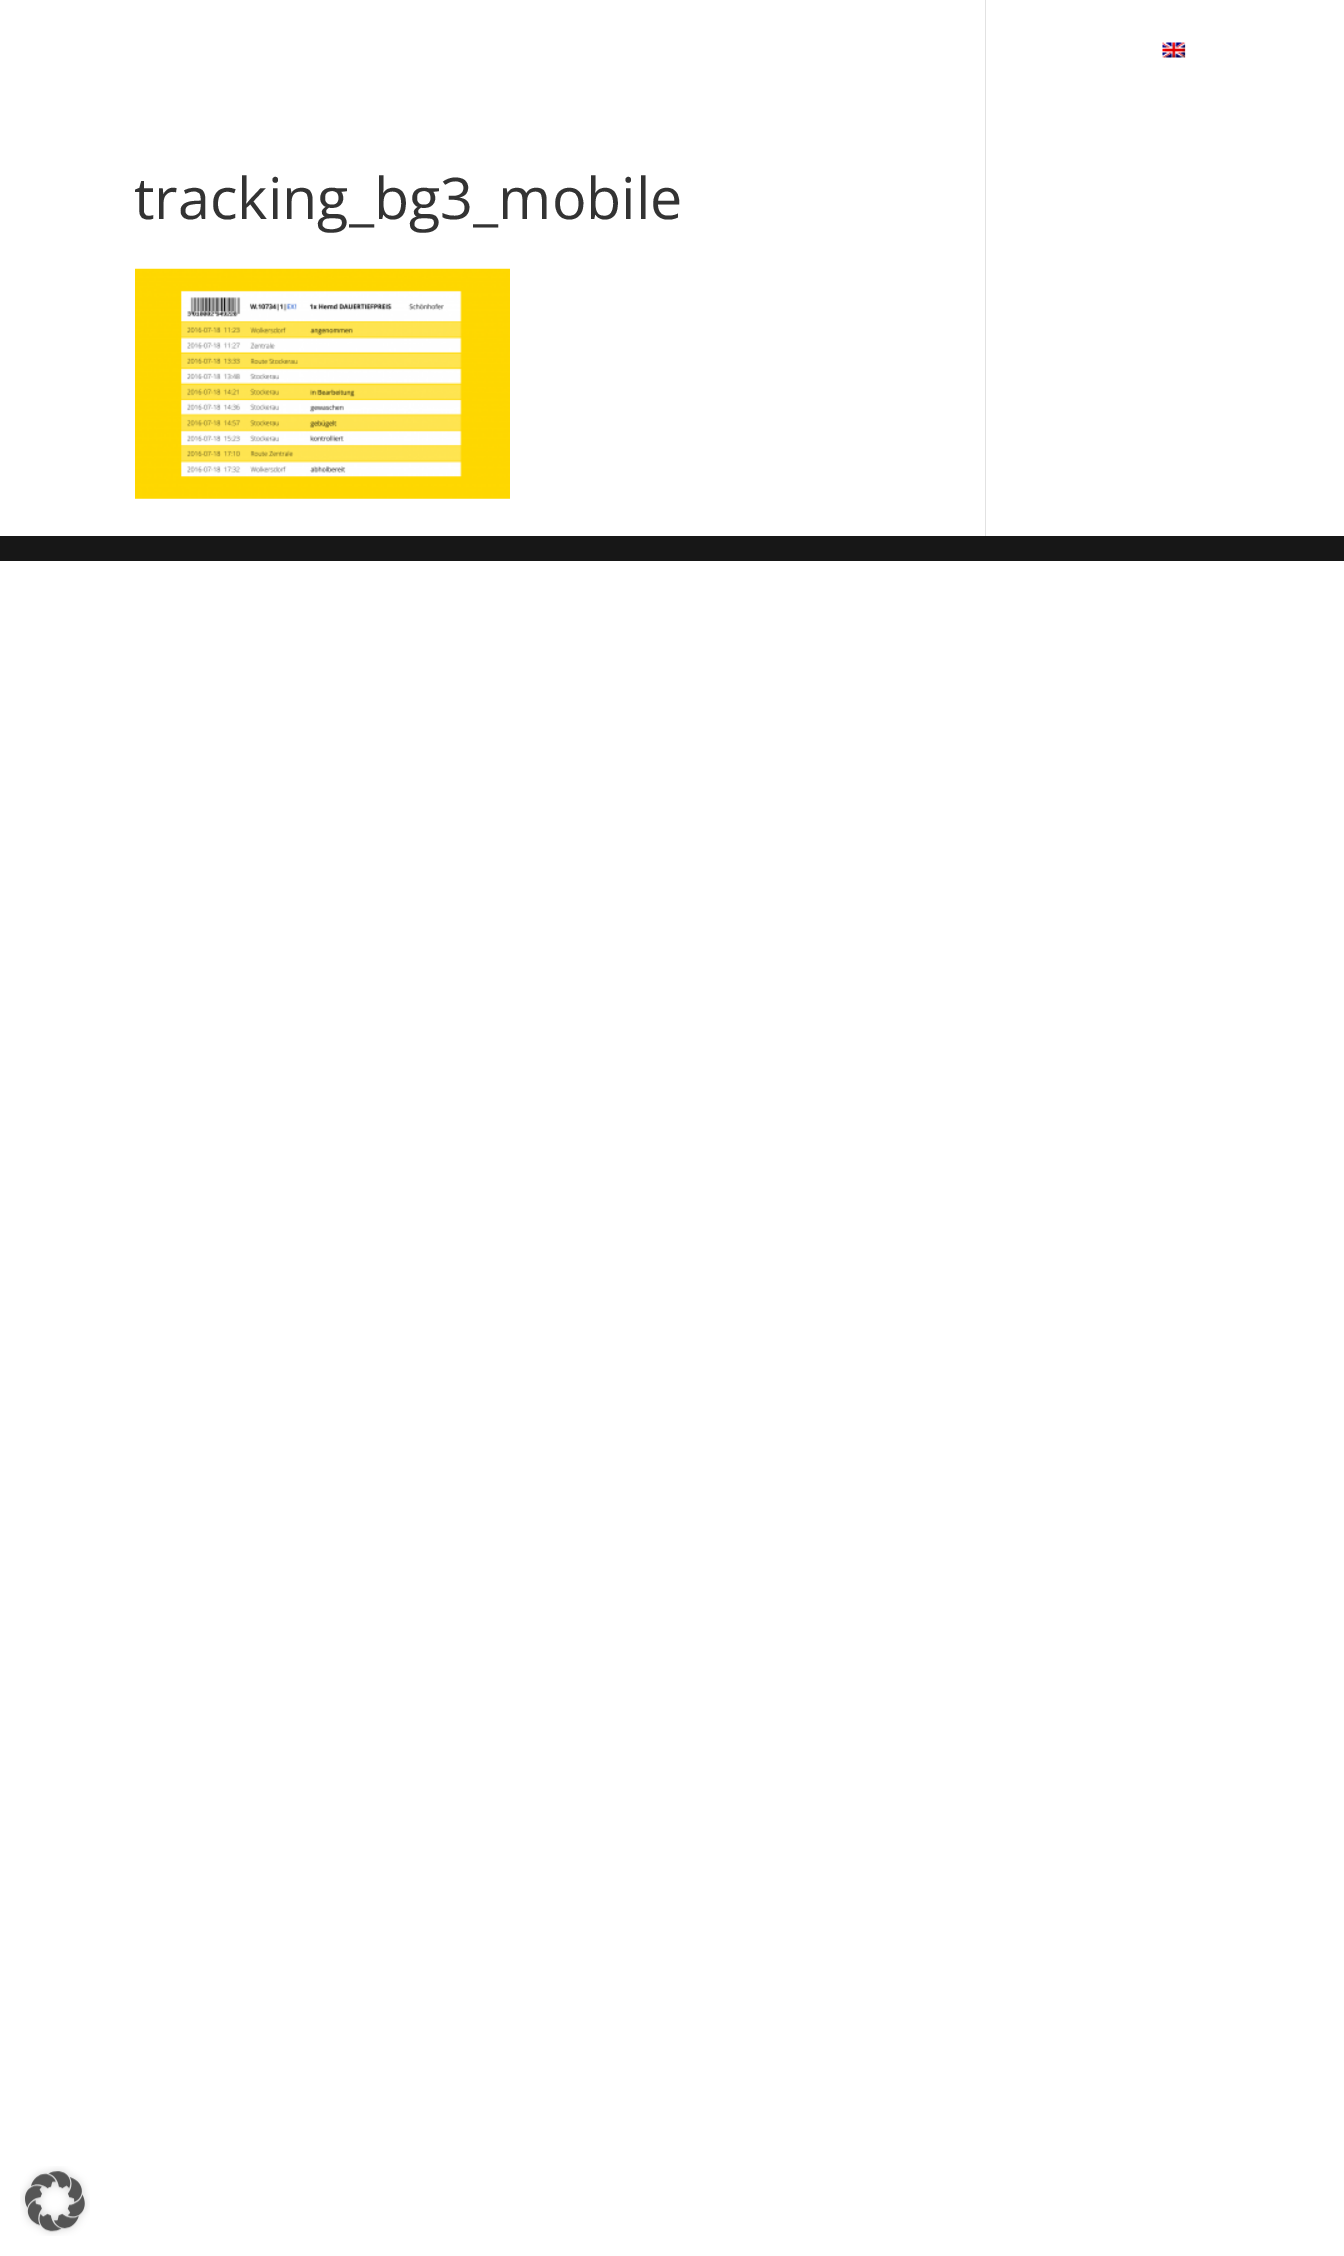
%!PS-Adobe-3.0
%%BoundingBox: 0 0 1344 2256
%%LanguageLevel: 3
%%Pages: 1
%%EndComments
%%BeginProlog
/drawimage { 5 dict begin { /h /w /y /x /name } { exch def } forall
  gsave x y translate w h scale
  w h 8 [w 0 0 h 0 0] name (r) file false 3 colorimage grestore end } def
%%EndProlog
%%BeginSetup
<< /PageSize [1344 2256] >> setpagedevice
%%EndSetup
%%Page: 1 1
0 2256 translate 1 -1 scale
4 setmiterlimit
1 setgray
0 0 1344 2256 rectfill
(images/1.raw) 1162 42 24 16 drawimage
(images/2.raw) 135 268 375 231 drawimage
0.886 setgray
985 0 1 536 rectfill
0.09 setgray
0 536 1344 25 rectfill
(images/3.raw) 20 2166 70 70 drawimage
/OpenSans-Regular [57.5 0 0 -57.5 0 0] selectfont
0.2 setgray
134 219 moveto (tracking_bg3_mobile) show
showpage
%%EOF
